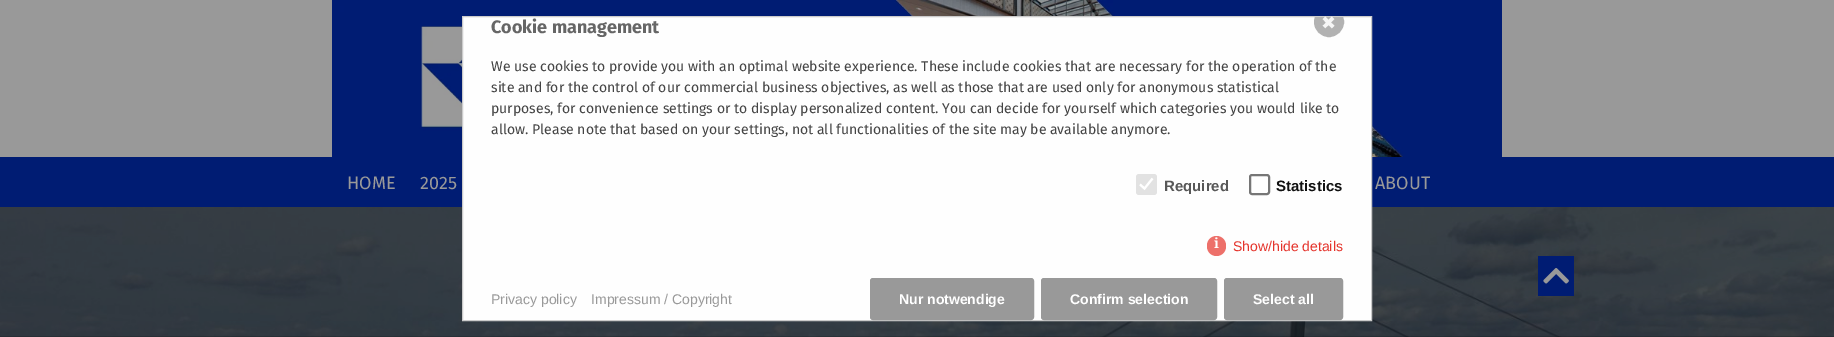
%!PS-Adobe-3.0
%%BoundingBox: 0 0 1834 337
%%LanguageLevel: 3
%%Pages: 1
%%EndComments
%%BeginProlog
/rrect { 5 dict begin { /r /h /w /y /x } { exch def } forall
  x r add y moveto x w add y 2 copy h add r arct x w add y h add x 1 index r arct
  x y h add x y r arct x y 2 copy exch w add exch r arct closepath end } def
/drawimage { 5 dict begin { /h /w /y /x /name } { exch def } forall
  gsave x y translate w h scale
  w h 8 [w 0 0 h 0 0] name (r) file false 3 colorimage grestore end } def
%%EndProlog
%%BeginSetup
<< /PageSize [1834 337] >> setpagedevice
%%EndSetup
%%Page: 1 1
0 337 translate 1 -1 scale
4 setmiterlimit
1 setgray
0 0 1834 337 rectfill
(images/1.raw) 0 207 1834 130 drawimage
0.6 setgray
0 0 1834 157 rectfill
(images/2.raw) 332 0 1170 157 drawimage
0 0.11 0.451 setrgbcolor
0 157 1834 50 rectfill
0.996 setgray
newpath 462.5 16.5 moveto 1371.5 16.5 lineto 1371.5 320.5 lineto 462.5 320.5 lineto closepath gsave fill grestore
0.796 setgray
stroke
gsave
463 17 908 303 rectclip
0.698 setgray
newpath 1329 22 14 0 360 arc closepath gsave fill grestore
2 setlinewidth
stroke
grestore
0.886 setgray
1136 174 21 21 3 rrect fill
1 setgray
2.1 setlinewidth
newpath 1140 184.5 moveto 1144.5 188.5 lineto 1152.5 178.5 lineto stroke
0.463 setgray
2 setlinewidth
1250 175 19 19 2 rrect stroke
0.929 0.439 0.416 setrgbcolor
1207 236 19 20 9.5 rrect fill
0.6 setgray
870.5 278.5 163 41 2.5 rrect gsave fill grestore
1 setlinewidth
stroke
1041.5 278.5 175 41 2.5 rrect gsave fill grestore
stroke
1224.5 278.5 118 41 2.5 rrect gsave fill grestore
stroke
0 0.11 0.451 setrgbcolor
1538 256 36 40 rectfill
(images/3.raw) 1543 268 26 16 drawimage
/DejaVuSans-Regular [18 0 0 -18 0 0] selectfont
0.965 setgray
1321 29 moveto (✖) show
/FiraSans-Bold [18 0 0 -18 0 0] selectfont
0.4 setgray
491 33 moveto (Cookie management) show
/FiraSans-Regular [14 0 0 -14 0 0] selectfont
0.267 setgray
491 71 moveto (We use cookies to provide you with an optimal website experience. These include cookies that are necessary for the operation of the) show
491 92 moveto (site and for the control of our commercial business objectives, as well as those that are used only for anonymous statistical) show
491 113 moveto (purposes, for convenience settings or to display personalized content. You can decide for yourself which categories you would like to) show
491 134 moveto (allow. Please note that based on your settings, not all functionalities of the site may be available anymore.) show
/LiberationSans-Bold [15 0 0 -15 0 0] selectfont
0.345 setgray
1164 191 moveto (Required) show
0.067 setgray
1276 191 moveto (Statistics) show
/NotoSerif-Bold [14 0 0 -14 0 0] selectfont
1 setgray
1214 248 moveto (i) show
/LiberationSans-Regular [14 0 0 -14 0 0] selectfont
0.898 0.2 0.169 setrgbcolor
1233 251 moveto (Show/hide details) show
0.6 setgray
491 304 moveto (Privacy policy) show
591 304 moveto (Impressum / Copyright) show
/LiberationSans-Bold [14 0 0 -14 0 0] selectfont
1 setgray
899 304 moveto (Nur notwendige) show
1070 304 moveto (Confirm selection) show
1253 304 moveto (Select all) show
/FiraSans-Regular [18 0 0 -18 0 0] selectfont
0.6 setgray
347 189 moveto (HOME) show
420 189 moveto (2025) show
1375 189 moveto (ABOUT) show
showpage
%%EOF
